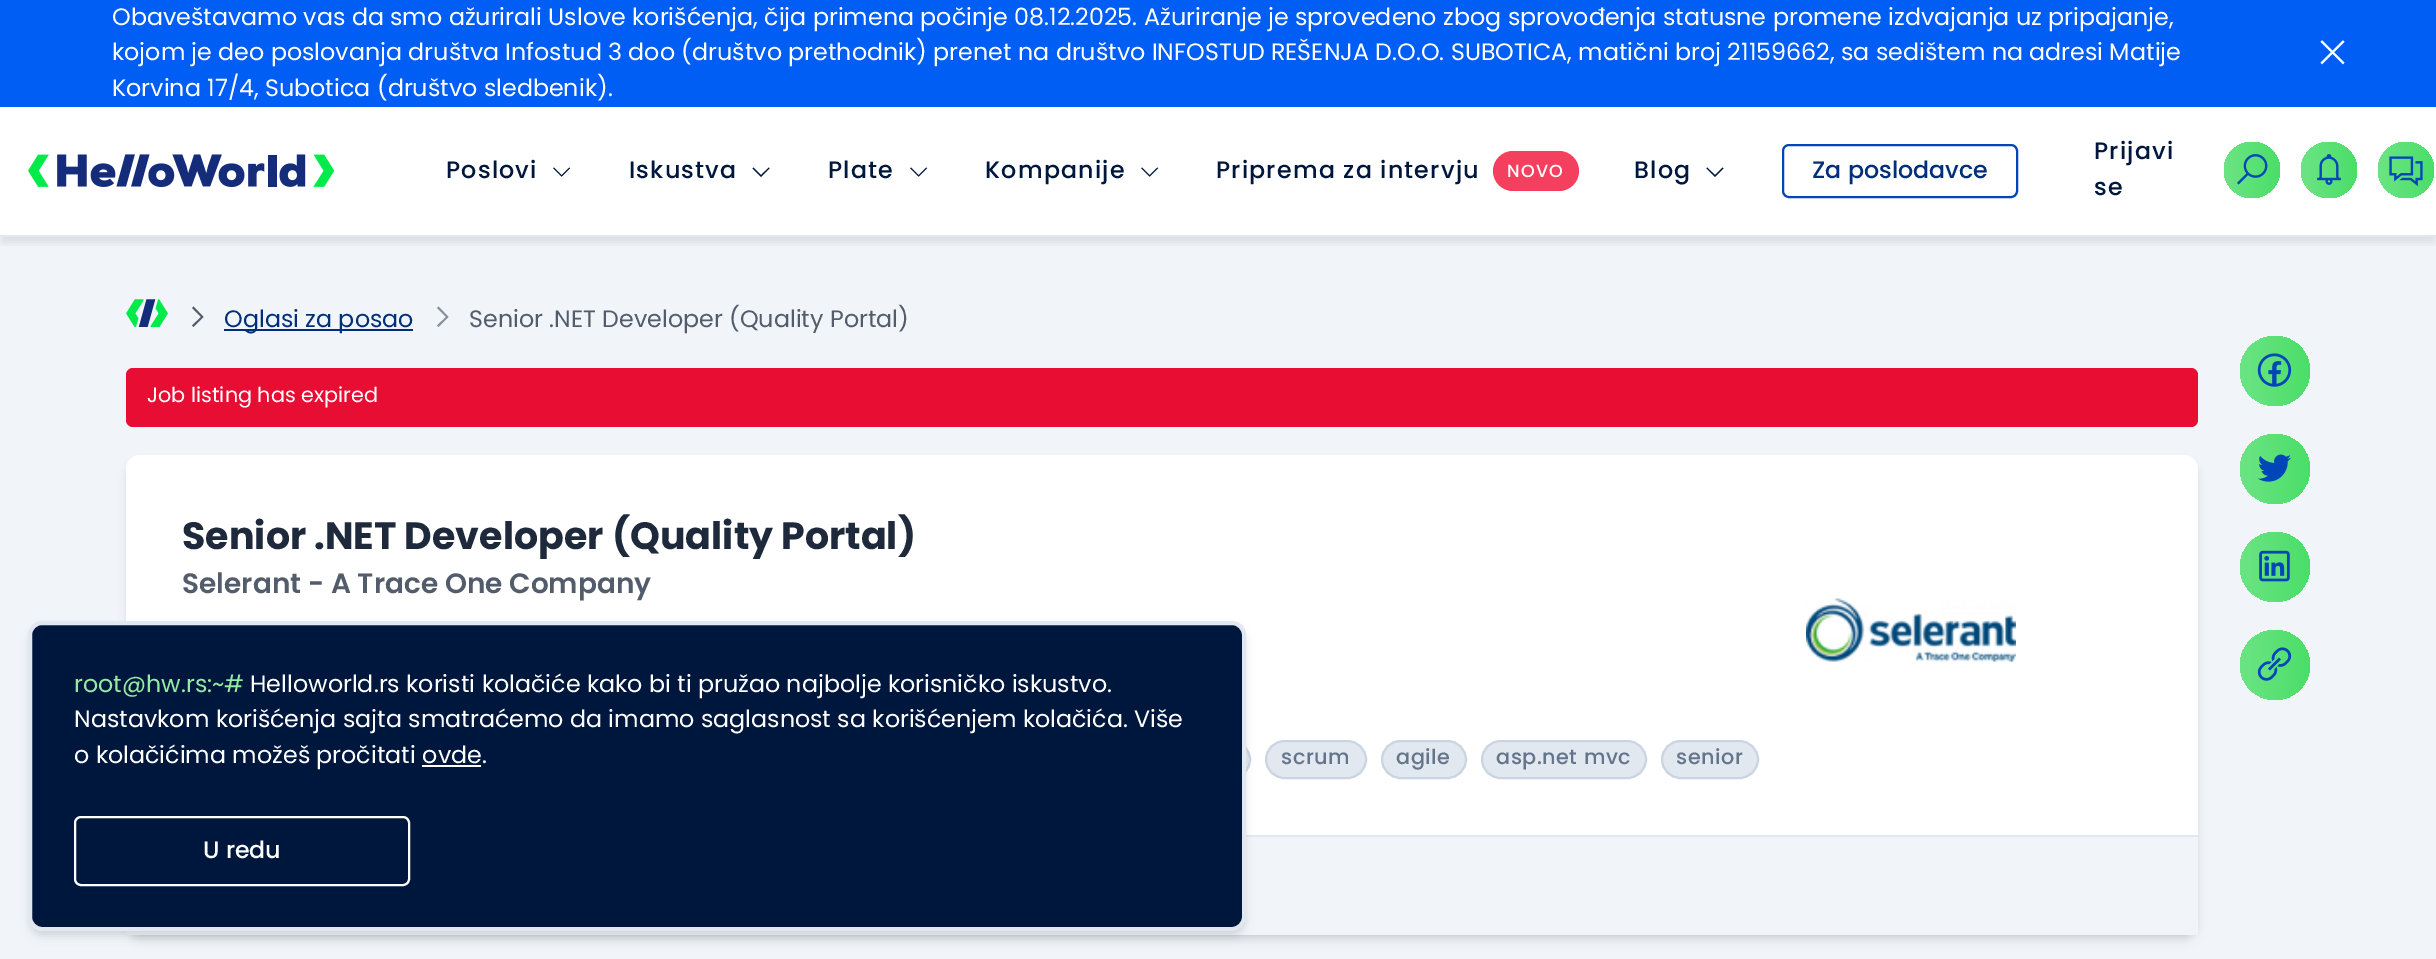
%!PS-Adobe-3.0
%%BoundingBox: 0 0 2436 959
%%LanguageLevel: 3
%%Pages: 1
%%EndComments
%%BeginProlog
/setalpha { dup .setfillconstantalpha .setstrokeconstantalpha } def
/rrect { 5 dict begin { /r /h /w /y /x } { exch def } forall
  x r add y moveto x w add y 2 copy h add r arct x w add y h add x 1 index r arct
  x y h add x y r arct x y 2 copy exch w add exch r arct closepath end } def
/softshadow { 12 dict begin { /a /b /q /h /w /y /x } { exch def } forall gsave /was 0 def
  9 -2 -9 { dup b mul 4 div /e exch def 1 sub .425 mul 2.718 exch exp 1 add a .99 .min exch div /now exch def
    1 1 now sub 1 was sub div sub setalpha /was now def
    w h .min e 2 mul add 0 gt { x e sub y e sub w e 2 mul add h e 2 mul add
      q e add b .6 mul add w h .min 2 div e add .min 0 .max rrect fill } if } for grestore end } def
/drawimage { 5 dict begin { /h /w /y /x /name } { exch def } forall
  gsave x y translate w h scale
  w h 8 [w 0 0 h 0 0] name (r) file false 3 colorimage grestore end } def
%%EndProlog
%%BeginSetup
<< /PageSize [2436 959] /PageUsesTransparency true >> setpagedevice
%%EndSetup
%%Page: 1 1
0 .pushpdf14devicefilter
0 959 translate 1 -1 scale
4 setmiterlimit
0.945 0.961 0.976 setrgbcolor
0 0 2436 959 rectfill
1 setgray
0 107 2436 128 rectfill
0 0.369 0.961 setrgbcolor
0 0 2436 107 rectfill
(images/1.raw) 2320 40 25 25 drawimage
gsave
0 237 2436 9 rectclip
0 setgray
2 116 2432 126 0 5 0.1 softshadow
grestore
0.886 0.91 0.941 setrgbcolor
0 235 2436 2 rectfill
(images/2.raw) 28 154 306 33 drawimage
(images/3.raw) 553 167 18 10 drawimage
0 0.09 0.239 setrgbcolor
newpath 753.5 167.5 moveto 752.5 168.5 lineto 761 177 lineto 769.5 168.5 lineto 769 167.5 lineto 761 175 lineto closepath fill
(images/3.raw) 910 167 18 10 drawimage
(images/3.raw) 1141 167 18 10 drawimage
0.957 0.247 0.369 setrgbcolor
1493 151 86 40 20 rrect fill
0 0.09 0.239 setrgbcolor
newpath 1707 167.5 moveto 1706.5 168.5 lineto 1715 177 lineto 1723.5 168.5 lineto 1722.5 167.5 lineto 1715 175 lineto closepath fill
0 0.275 0.722 setrgbcolor
2 setlinewidth
1783 145 234 52 6 rrect stroke
gsave newpath 2252 170 28 0 360 arc closepath clip newpath
<< /ShadingType 2 /ColorSpace /DeviceRGB /Coords [2224 170 2280 170] /Extend [true true] /Function << /FunctionType 2 /Domain [0 1] /C0 [0.424 0.894 0.518] /C1 [0.29 0.871 0.408] /N 1 >> >> shfill grestore
(images/4.raw) 2237 154 31 31 drawimage
gsave newpath 2329 170 28 0 360 arc closepath clip newpath
<< /ShadingType 2 /ColorSpace /DeviceRGB /Coords [2301 170 2357 170] /Extend [true true] /Function << /FunctionType 2 /Domain [0 1] /C0 [0.424 0.894 0.518] /C1 [0.29 0.871 0.408] /N 1 >> >> shfill grestore
(images/5.raw) 2317 154 24 31 drawimage
gsave newpath 2406 170 28 0 360 arc closepath clip newpath
<< /ShadingType 2 /ColorSpace /DeviceRGB /Coords [2378 170 2434 170] /Extend [true true] /Function << /FunctionType 2 /Domain [0 1] /C0 [0.424 0.894 0.518] /C1 [0.29 0.871 0.408] /N 1 >> >> shfill grestore
(images/6.raw) 2389 156 34 31 drawimage
(images/7.raw) 126 299 42 28 drawimage
0.325 0.361 0.42 setrgbcolor
newpath 193.5 306.5 moveto 192 308 lineto 201 317 lineto 192 325.5 lineto 193.5 327 lineto 203.5 317 lineto closepath fill
0 0.184 0.478 setrgbcolor
224 329 189 2 rectfill
0.533 0.561 0.604 setrgbcolor
newpath 438.5 306.5 moveto 437 308 lineto 446 317 lineto 437 325.5 lineto 438.5 327 lineto 448.5 317 lineto closepath fill
0.91 0.051 0.196 setrgbcolor
126 368 2072 59 7 rrect fill
0 setgray
130 462 2065 473 11 3.5 0.1 softshadow
128 464 2068 476 12 5 0.1 softshadow
1 setgray
newpath 140 455 moveto 2184 455 lineto 2191.5 455 2198 461.5 2198 469 curveto 2198 835 lineto 126 835 lineto 126 469 lineto 126 461.5 132.5 455 140 455 curveto closepath fill
0.886 0.91 0.941 setrgbcolor
1246 835 952 2 rectfill
1179 741 71 37 18.5 rrect gsave fill grestore
0.796 0.835 0.882 setrgbcolor
stroke
0.886 0.91 0.941 setrgbcolor
1266 741 100 37 18.5 rrect gsave fill grestore
0.796 0.835 0.882 setrgbcolor
stroke
0.886 0.91 0.941 setrgbcolor
1382 741 84 37 18.5 rrect gsave fill grestore
0.796 0.835 0.882 setrgbcolor
stroke
0.886 0.91 0.941 setrgbcolor
1482 741 164 37 18.5 rrect gsave fill grestore
0.796 0.835 0.882 setrgbcolor
stroke
0.886 0.91 0.941 setrgbcolor
1662 741 96 37 18.5 rrect gsave fill grestore
0.796 0.835 0.882 setrgbcolor
stroke
(images/8.raw) 1806 598 210 64 drawimage
0.945 0.961 0.976 setrgbcolor
126 837 2072 98 rectfill
gsave newpath 2275 371 35 0 360 arc closepath clip newpath
<< /ShadingType 2 /ColorSpace /DeviceRGB /Coords [2240 371 2310 371] /Extend [true true] /Function << /FunctionType 2 /Domain [0 1] /C0 [0.424 0.894 0.518] /C1 [0.29 0.871 0.408] /N 1 >> >> shfill grestore
(images/9.raw) 2257 353 35 34 drawimage
gsave newpath 2275 469 35 0 360 arc closepath clip newpath
<< /ShadingType 2 /ColorSpace /DeviceRGB /Coords [2240 469 2310 469] /Extend [true true] /Function << /FunctionType 2 /Domain [0 1] /C0 [0.424 0.894 0.518] /C1 [0.29 0.871 0.408] /N 1 >> >> shfill grestore
(images/10.raw) 2258 454 33 28 drawimage
gsave newpath 2275 567 35 0 360 arc closepath clip newpath
<< /ShadingType 2 /ColorSpace /DeviceRGB /Coords [2240 567 2310 567] /Extend [true true] /Function << /FunctionType 2 /Domain [0 1] /C0 [0.424 0.894 0.518] /C1 [0.29 0.871 0.408] /N 1 >> >> shfill grestore
(images/11.raw) 2259 550 31 32 drawimage
gsave newpath 2275 665 35 0 360 arc closepath clip newpath
<< /ShadingType 2 /ColorSpace /DeviceRGB /Coords [2240 665 2310 665] /Extend [true true] /Function << /FunctionType 2 /Domain [0 1] /C0 [0.424 0.894 0.518] /C1 [0.29 0.871 0.408] /N 1 >> >> shfill grestore
(images/12.raw) 2257 647 35 34 drawimage
0 setgray
32 628 1211 303 11 3.5 0.1 softshadow
30 630 1214 306 12 5 0.1 softshadow
0 0.09 0.239 setrgbcolor
30 623 1214 306 12 rrect gsave fill grestore
0.886 0.91 0.941 setrgbcolor
4 setlinewidth
stroke
1 setgray
422 765 59 2 rectfill
2 setlinewidth
75 817 334 68 6 rrect stroke
/Poppins-Regular [23.77 0 0 -23.77 0 0] selectfont
112 25 moveto (Obaveštavamo vas da smo ažurirali Uslove korišćenja, čija primena počinje 08.12.2025.) show
1144 25 moveto (Ažuriranje je sprovedeno zbog sprovođenja statusne promene izdvajanja uz pripajanje,) show
112 60 moveto (kojom je deo poslovanja društva Infostud 3 doo \(društvo prethodnik\) prenet na društvo INFOSTUD REŠENJA D.O.O. SUBOTICA, matični broj 21159662, sa sedištem na adresi Matije) show
112 96 moveto (Korvina 17/4, Subotica \(društvo sledbenik\).) show
/Poppins-Medium [23.77 0 0 -23.77 0 0] selectfont
0 0.09 0.239 setrgbcolor
446 178 moveto 1.2 0 (Poslovi) ashow
629 178 moveto 1.2 0 (Iskustva) ashow
828 178 moveto 1.2 0 (Plate) ashow
985 178 moveto 1.2 0 (Kompanije) ashow
1216 178 moveto 1.2 0 (Priprema za intervju) ashow
/Poppins-Medium [17.5 0 0 -17.5 0 0] selectfont
1 setgray
1507 177 moveto 1.2 0 (NOVO) ashow
/Poppins-Medium [23.77 0 0 -23.77 0 0] selectfont
0 0.09 0.239 setrgbcolor
1634 178 moveto 1.2 0 (Blog) ashow
0 0.184 0.478 setrgbcolor
1812 178 moveto (Za poslodavce) show
0 0.09 0.239 setrgbcolor
2094 159 moveto 1.2 0 (Prijavi) ashow
2094 195 moveto 1.2 0 (se) ashow
/Poppins-Regular [23.77 0 0 -23.77 0 0] selectfont
0 0.184 0.478 setrgbcolor
224 327 moveto (Oglasi za posao) show
0.325 0.361 0.42 setrgbcolor
469 327 moveto (Senior .NET Developer \(Quality Portal\)) show
/Poppins-Regular [20.75 0 0 -20.75 0 0] selectfont
1 setgray
147 402 moveto (Job listing has expired) show
/Poppins-Bold [38 0 0 -38 0 0] selectfont
0.118 0.161 0.231 setrgbcolor
182 549 moveto (Senior .NET Developer \(Quality Portal\)) show
/Poppins-SemiBold [28 0 0 -28 0 0] selectfont
0.325 0.361 0.42 setrgbcolor
182 593 moveto (Selerant - A Trace One Company) show
/Poppins-Medium [20.75 0 0 -20.75 0 0] selectfont
0.392 0.455 0.545 setrgbcolor
1281 764 moveto 0.5 0 (scrum) ashow
1396 764 moveto 0.5 0 (agile) ashow
1496 764 moveto 0.5 0 (asp.net mvc) ashow
1676 764 moveto 0.5 0 (senior) ashow
/Poppins-Regular [23.77 0 0 -23.77 0 0] selectfont
0.576 0.922 0.647 setrgbcolor
74 692 moveto (root@hw.rs:~#) show
1 setgray
250 692 moveto (Helloworld.rs koristi kolačiće kako bi ti pružao najbolje korisničko iskustvo.) show
74 727 moveto (Nastavkom korišćenja sajta smatraćemo da imamo saglasnost sa korišćenjem kolačića. Više) show
74 763 moveto (o kolačićima možeš pročitati ovde.) show
/Poppins-Medium [23.77 0 0 -23.77 0 0] selectfont
203 858 moveto (U redu) show
.poppdf14devicefilter showpage
%%EOF
